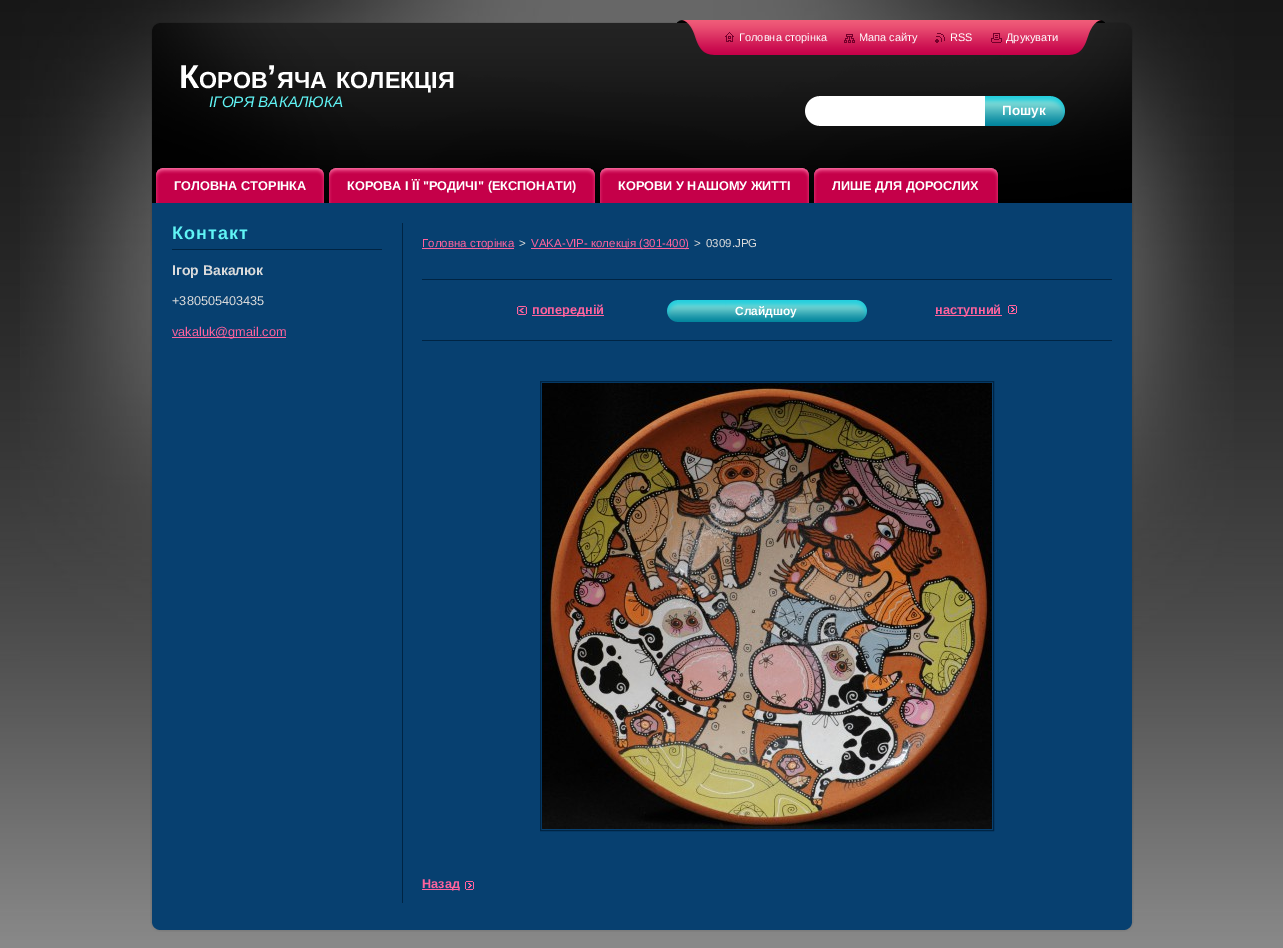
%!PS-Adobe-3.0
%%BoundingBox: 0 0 1283 948
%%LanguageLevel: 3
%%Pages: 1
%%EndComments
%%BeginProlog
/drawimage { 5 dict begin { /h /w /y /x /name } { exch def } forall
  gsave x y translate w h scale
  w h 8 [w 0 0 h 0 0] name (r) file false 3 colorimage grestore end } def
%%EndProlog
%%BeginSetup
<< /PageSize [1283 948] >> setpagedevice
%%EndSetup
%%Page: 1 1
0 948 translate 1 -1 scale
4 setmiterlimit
1 setgray
0 0 1283 948 rectfill
(images/1.raw) 0 0 1283 948 drawimage
(images/2.raw) 20 0 1214 664 drawimage
(images/9.raw) 151 22 982 181 drawimage
(images/3.raw) 677 20 37 35 drawimage
(images/4.raw) 714 20 391 35 drawimage
(images/5.raw) 725 32 9 10 drawimage
(images/6.raw) 844 34 11 9 drawimage
(images/7.raw) 935 33 10 10 drawimage
(images/8.raw) 991 33 11 10 drawimage
(images/10.raw) 805 96 180 30 drawimage
(images/11.raw) 985 96 80 30 drawimage
(images/12.raw) 156 168 8 35 drawimage
(images/13.raw) 164 168 160 35 drawimage
(images/14.raw) 329 168 8 35 drawimage
(images/15.raw) 337 168 258 35 drawimage
(images/16.raw) 600 168 8 35 drawimage
(images/17.raw) 608 168 201 35 drawimage
(images/18.raw) 814 168 8 35 drawimage
(images/19.raw) 822 168 176 35 drawimage
(images/20.raw) 151 923 982 9 drawimage
(images/21.raw) 150 203 984 720 drawimage
0 0.141 0.263 setrgbcolor
402 223 1 680 rectfill
172 249 210 1 rectfill
1 0.388 0.616 setrgbcolor
172 337 114 1 rectfill
422 248 92 1 rectfill
531 248 158 1 rectfill
0 0.141 0.263 setrgbcolor
422 279 690 1 rectfill
422 340 690 1 rectfill
(images/22.raw) 517 306 10 9 drawimage
1 0.388 0.616 setrgbcolor
532 315 72 1 rectfill
(images/23.raw) 667 300 10 22 drawimage
(images/24.raw) 677 300 190 22 drawimage
(images/25.raw) 1008 305 9 9 drawimage
935 315 67 1 rectfill
0 0.141 0.263 setrgbcolor
540.5 381.5 453 449 rectstroke
(images/26.raw) 542 383 450 446 drawimage
(images/25.raw) 465 881 9 9 drawimage
1 0.388 0.616 setrgbcolor
422 889 37 1 rectfill
/LiberationSans-Regular [11 0 0 -11 0 0] selectfont
1 setgray
739 41 moveto (Головна сторінка) show
859 41 moveto (Мапа сайту) show
950 41 moveto (RSS) show
1006 41 moveto (Друкувати) show
/LiberationSans-Bold [33 0 0 -33 0 0] selectfont
179 88 moveto (К) show
267 88 moveto (’) show
/LiberationSans-Bold [23.25 0 0 -23.25 0 0] selectfont
199 88 moveto (ОРОВ) show
277 88 moveto (ЯЧА) show
336 88 moveto (КОЛЕКЦІЯ) show
/LiberationSans-Italic [15.25 0 0 -15.25 0 0] selectfont
0.376 0.957 0.961 setrgbcolor
209 107 moveto (ІГОРЯ ВАКАЛЮКА) show
/LiberationSans-Bold [13.5 0 0 -13.5 0 0] selectfont
1 setgray
1002 115 moveto (Пошук) show
/LiberationSans-Bold [12.75 0 0 -12.75 0 0] selectfont
174 190 moveto (ГОЛОВНА СТОРІНКА) show
347 190 moveto (КОРОВА І ЇЇ "РОДИЧІ" \(ЕКСПОНАТИ\)) show
618 190 moveto (КОРОВИ У НАШОМУ ЖИТТІ) show
832 190 moveto (ЛИШЕ ДЛЯ ДОРОСЛИХ) show
/LiberationSans-Bold [18 0 0 -18 0 0] selectfont
0.376 0.957 0.961 setrgbcolor
172 239 moveto 1 0 (Контакт) ashow
/LiberationSans-Bold [14 0 0 -14 0 0] selectfont
0.859 setgray
172 275 moveto (Ігор Вакалюк) show
/LiberationSans-Regular [12.75 0 0 -12.75 0 0] selectfont
172 305 moveto (+380505403435) show
1 0.388 0.616 setrgbcolor
172 336 moveto (vakaluk@gmail.com) show
/LiberationSans-Regular [11.5 0 0 -11.5 0 0] selectfont
422 247 moveto (Головна сторінка) show
0.859 setgray
519 247 moveto (>) show
1 0.388 0.616 setrgbcolor
531 247 moveto (VAKA-VIP- колекція \(301-400\)) show
0.859 setgray
694 247 moveto (>) show
706 247 moveto (0309.JPG) show
/LiberationSans-Bold [12.75 0 0 -12.75 0 0] selectfont
1 0.388 0.616 setrgbcolor
532 314 moveto (попередній) show
/LiberationSans-Bold [12 0 0 -12 0 0] selectfont
1 setgray
735 315 moveto (Слайдшоу) show
/LiberationSans-Bold [12.75 0 0 -12.75 0 0] selectfont
1 0.388 0.616 setrgbcolor
935 314 moveto (наступний) show
422 888 moveto (Назад) show
showpage
%%EOF
